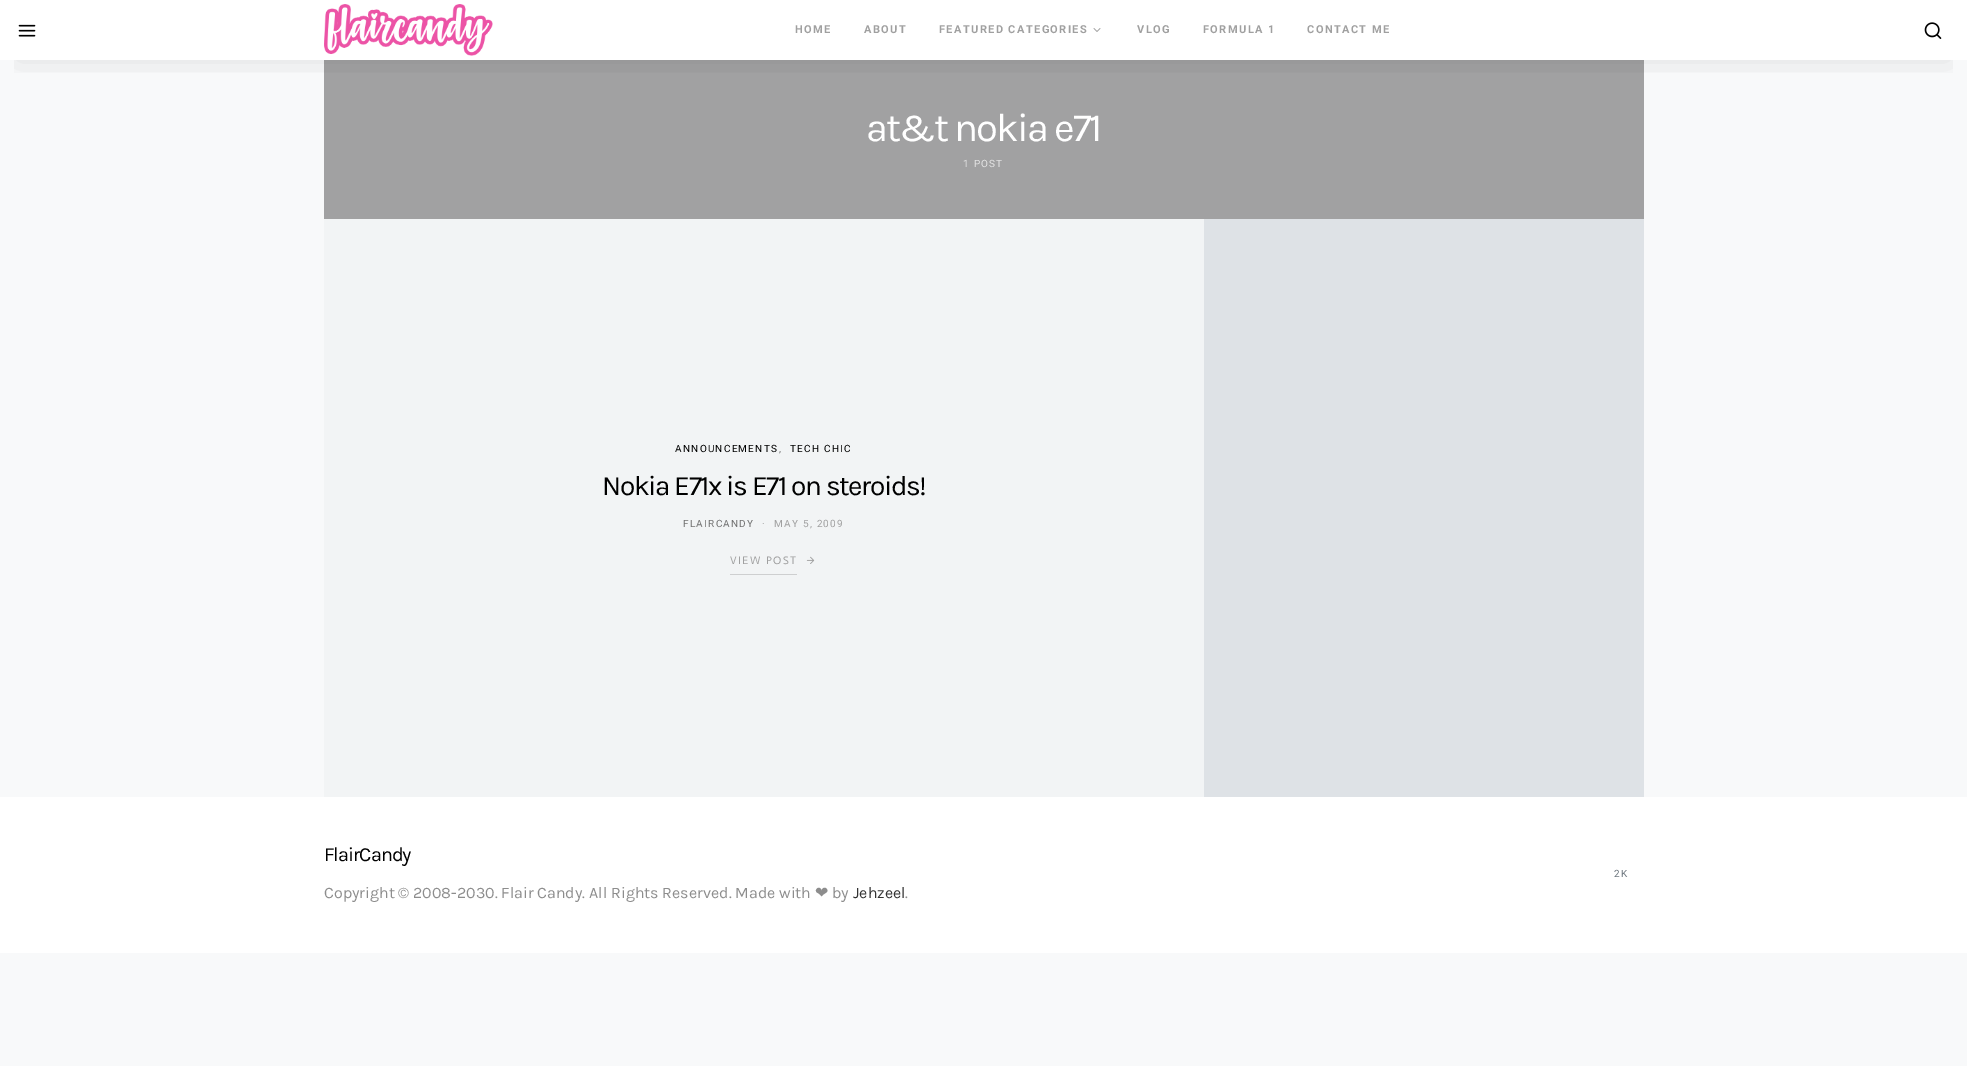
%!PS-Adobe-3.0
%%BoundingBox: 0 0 1967 1066
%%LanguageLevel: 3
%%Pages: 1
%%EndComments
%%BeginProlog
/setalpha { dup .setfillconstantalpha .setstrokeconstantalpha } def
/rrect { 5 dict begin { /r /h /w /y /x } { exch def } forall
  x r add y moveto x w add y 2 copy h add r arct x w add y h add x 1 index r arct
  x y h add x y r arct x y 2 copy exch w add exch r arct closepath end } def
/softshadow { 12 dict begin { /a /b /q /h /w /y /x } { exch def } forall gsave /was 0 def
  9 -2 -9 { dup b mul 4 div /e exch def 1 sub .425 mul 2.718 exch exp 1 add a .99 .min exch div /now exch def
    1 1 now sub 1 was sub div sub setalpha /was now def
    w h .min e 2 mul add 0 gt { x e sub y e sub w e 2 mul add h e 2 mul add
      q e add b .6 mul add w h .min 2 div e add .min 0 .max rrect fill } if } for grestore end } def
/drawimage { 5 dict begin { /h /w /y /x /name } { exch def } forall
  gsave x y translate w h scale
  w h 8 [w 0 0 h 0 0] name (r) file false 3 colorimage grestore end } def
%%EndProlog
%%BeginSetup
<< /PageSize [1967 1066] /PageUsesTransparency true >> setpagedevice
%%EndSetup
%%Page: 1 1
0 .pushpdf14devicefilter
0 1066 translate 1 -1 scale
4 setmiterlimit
0.973 0.976 0.98 setrgbcolor
0 0 1967 1066 rectfill
1 setgray
0 0 1967 60 rectfill
0.631 0.631 0.635 setrgbcolor
324 60 1320 159 rectfill
gsave
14 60 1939 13 rectclip
0 setgray
16 32 1935 28 0 16 0.1 softshadow
grestore
(images/1.raw) 18 24 18 13 drawimage
(images/2.raw) 324 4 169 52 drawimage
(images/3.raw) 1093 28 8 4 drawimage
(images/4.raw) 1924 22 18 17 drawimage
0.871 0.886 0.902 setrgbcolor
1204 219 440 578 rectfill
0.949 0.957 0.961 setrgbcolor
324 219 880 578 rectfill
0.808 0.812 0.816 setrgbcolor
730 574 67 1 rectfill
(images/5.raw) 806 556 9 8 drawimage
1 setgray
0 797 1967 156 rectfill
/Roboto-Bold [11 0 0 -11 0 0] selectfont
0.627 setgray
795 33 moveto 1.4 0 (HOME) ashow
864 33 moveto 1.4 0 (ABOUT) ashow
939 33 moveto 1.4 0 (FEATURED CATEGORIES) ashow
1137 33 moveto 1.4 0 (VLOG) ashow
1203 33 moveto 1.4 0 (FORMULA 1) ashow
1307 33 moveto 1.4 0 (CONTACT ME) ashow
/Karla-Regular [40 0 0 -40 0 0] selectfont
1 setgray
866 141 moveto -2 0 (at&t nokia e71) ashow
/Roboto-Regular [10 0 0 -10 0 0] selectfont
0.89 setgray
963 167 moveto 1.25 0 (1 POST) ashow
0 setgray
675 452 moveto 1.25 0 (ANNOUNCEMENTS) ashow
0.439 setgray
779 452 moveto 1.25 0 (,) ashow
0 setgray
790 452 moveto 1.25 0 (TECH CHIC) ashow
/Karla-Regular [28 0 0 -28 0 0] selectfont
602 495 moveto -1.4 0 (Nokia E71x is E71 on steroids!) ashow
/Roboto-Regular [10 0 0 -10 0 0] selectfont
0.439 setgray
683 527 moveto 1.25 0 (FLAIRCANDY) ashow
0.627 setgray
762 527 moveto 1.25 0 (·) ashow
774 527 moveto 1.25 0 (MAY 5, 2009) ashow
/Actor-Regular [11 0 0 -11 0 0] selectfont
730 564 moveto 1.4 0 (VIEW POST) ashow
/Karla-Regular [20 0 0 -20 0 0] selectfont
0 setgray
324 861 moveto -1 0 (FlairCandy) ashow
/Roboto-Regular [10 0 0 -10 0 0] selectfont
0.424 0.459 0.49 setrgbcolor
1614 877 moveto 1.25 0 (2K) ashow
/Karla-Regular [16 0 0 -16 0 0] selectfont
0.553 setgray
324 898 moveto (Copyright © 2008-2030. Flair Candy. All Rights Reserved. Made with) show
/DejaVuSans-Regular [16 0 0 -16 0 0] selectfont
815 898 moveto (❤) show
/Karla-Regular [16 0 0 -16 0 0] selectfont
832 898 moveto (by) show
0.2 setgray
853 898 moveto (Jehzeel) show
0.553 setgray
905 898 moveto (.) show
.poppdf14devicefilter showpage
%%EOF
